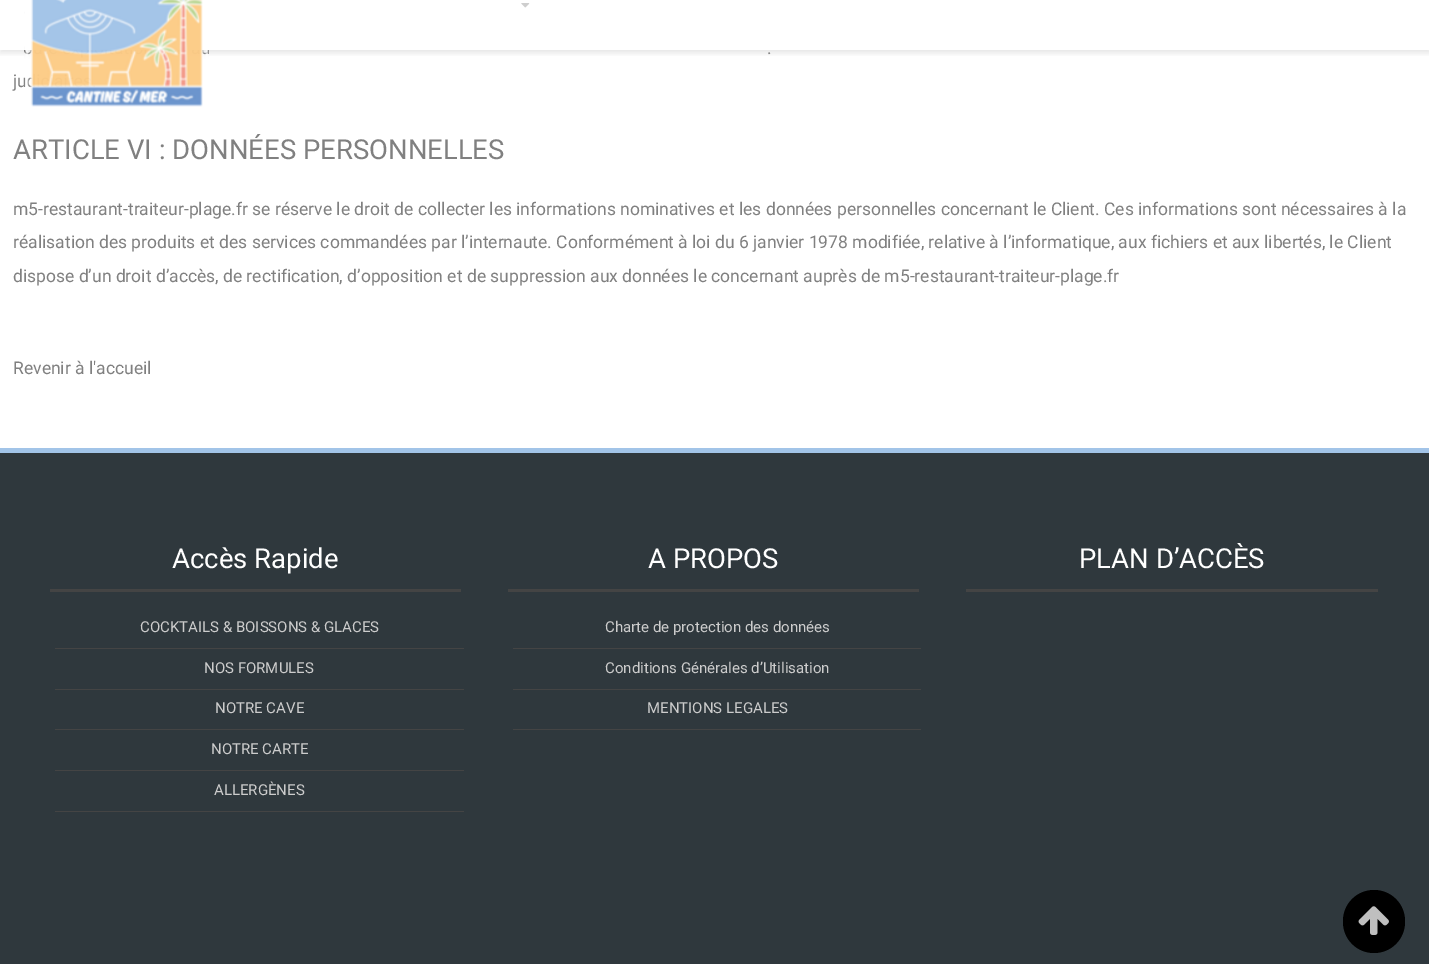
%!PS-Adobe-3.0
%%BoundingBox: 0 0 1429 964
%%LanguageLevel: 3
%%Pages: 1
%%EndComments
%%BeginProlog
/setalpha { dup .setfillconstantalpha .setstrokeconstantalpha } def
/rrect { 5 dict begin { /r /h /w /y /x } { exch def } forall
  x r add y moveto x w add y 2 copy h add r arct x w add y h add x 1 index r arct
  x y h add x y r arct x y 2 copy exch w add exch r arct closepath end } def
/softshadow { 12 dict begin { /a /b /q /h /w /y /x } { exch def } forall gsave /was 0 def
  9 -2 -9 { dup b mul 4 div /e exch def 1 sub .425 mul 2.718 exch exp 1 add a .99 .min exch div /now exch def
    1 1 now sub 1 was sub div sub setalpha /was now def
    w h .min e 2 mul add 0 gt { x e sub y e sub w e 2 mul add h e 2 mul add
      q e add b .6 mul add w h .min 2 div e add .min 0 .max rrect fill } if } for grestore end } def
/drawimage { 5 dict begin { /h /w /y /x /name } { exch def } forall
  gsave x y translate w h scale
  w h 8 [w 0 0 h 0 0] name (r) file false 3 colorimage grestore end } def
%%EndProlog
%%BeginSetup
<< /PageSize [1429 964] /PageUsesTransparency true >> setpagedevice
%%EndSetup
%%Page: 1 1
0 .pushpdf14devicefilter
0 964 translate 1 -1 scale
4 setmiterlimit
1 setgray
0 0 1429 964 rectfill
gsave
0 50 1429 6 rectclip
0 setgray
0 -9 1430 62 0 3 0.1 softshadow
grestore
(images/2.raw) 521 3 9 5 drawimage
0.184 0.22 0.239 setrgbcolor
0 453 1429 511 rectfill
0.635 0.769 0.91 setrgbcolor
0 448 1429 5 rectfill
0.267 setgray
50 589 411 3 rectfill
55 648 409 1 rectfill
55 689 409 1 rectfill
55 729 409 1 rectfill
55 770 409 1 rectfill
55 811 409 1 rectfill
508 589 411 3 rectfill
513 648 408 1 rectfill
513 689 408 1 rectfill
513 729 408 1 rectfill
966 589 412 3 rectfill
0 setgray
1343 890 62 63 31 rrect fill
(images/3.raw) 1358 906 31 29 drawimage
/Roboto-Regular [17.5 0 0 -17.5 0 0] selectfont
0.502 setgray
767 54 moveto (.) show
13 87 moveto (ju) show
(images/1.raw) 24 0 185 107 drawimage
/Roboto-Regular [27.5 0 0 -27.5 0 0] selectfont
13 159 moveto (ARTICLE VI : DONNÉES PERSONNELLES) show
/Roboto-Regular [17.5 0 0 -17.5 0 0] selectfont
13 215 moveto (m5-restaurant-traiteur-plage.fr se réserve le droit de collecter les informations nominatives et les données personnelles concernant le Client. Ces informations sont nécessaires à la) show
13 248 moveto (réalisation des produits et des services commandées par l’internaute. Conformément à loi du 6 janvier 1978 modifiée, relative à l’informatique, aux fichiers et aux libertés, le Client) show
13 282 moveto (dispose d’un droit d’accès, de rectification, d’opposition et de suppression aux données le concernant auprès de m5-restaurant-traiteur-plage.fr) show
13 374 moveto (Revenir à l'accueil) show
/Roboto-Regular [27.5 0 0 -27.5 0 0] selectfont
1 setgray
172 568 moveto (Accès Rapide) show
/Roboto-Regular [15 0 0 -15 0 0] selectfont
0.8 setgray
140 632 moveto (COCKTAILS & BOISSONS & GLACES) show
204 673 moveto (NOS FORMULES) show
215 713 moveto (NOTRE CAVE) show
211 754 moveto (NOTRE CARTE) show
214 795 moveto (ALLERGÈNES) show
/Roboto-Regular [27.5 0 0 -27.5 0 0] selectfont
1 setgray
648 568 moveto (A PROPOS) show
/Roboto-Regular [15 0 0 -15 0 0] selectfont
0.8 setgray
605 632 moveto (Charte de protection des données) show
605 673 moveto (Conditions Générales d’Utilisation) show
647 713 moveto (MENTIONS LEGALES) show
/Roboto-Regular [27.5 0 0 -27.5 0 0] selectfont
1 setgray
1079 568 moveto (PLAN D’ACCÈS) show
.poppdf14devicefilter showpage
%%EOF
